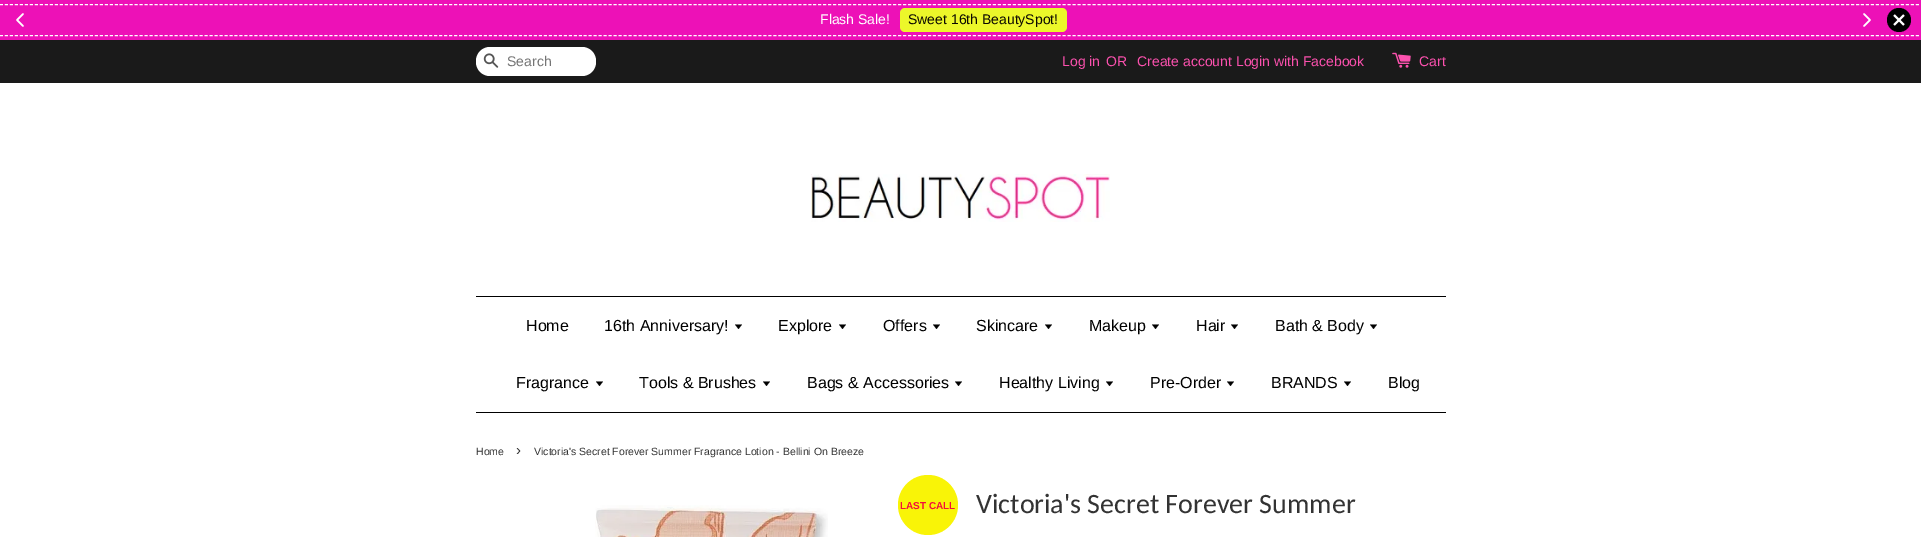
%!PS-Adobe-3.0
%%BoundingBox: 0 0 1921 537
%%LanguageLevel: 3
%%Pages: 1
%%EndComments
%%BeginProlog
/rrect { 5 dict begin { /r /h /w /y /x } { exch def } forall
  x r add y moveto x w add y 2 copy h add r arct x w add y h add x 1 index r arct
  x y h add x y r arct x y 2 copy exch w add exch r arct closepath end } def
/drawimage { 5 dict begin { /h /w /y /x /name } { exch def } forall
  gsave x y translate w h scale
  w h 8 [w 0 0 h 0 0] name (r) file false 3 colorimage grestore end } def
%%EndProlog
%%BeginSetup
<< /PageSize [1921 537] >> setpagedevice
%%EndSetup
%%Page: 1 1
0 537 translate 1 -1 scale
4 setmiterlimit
1 setgray
0 0 1921 537 rectfill
0.929 0.067 0.718 setrgbcolor
0 0 1921 40 rectfill
1 setgray
[3 1.99] 0 setdash
newpath 0 4.5 moveto 1921 4.5 lineto stroke
newpath 0 35.5 moveto 1921 35.5 lineto stroke
1.5 setlinewidth
1 setlinecap
1 setlinejoin
[] 0 setdash
newpath 23 14 moveto 17 20 lineto 23 26 lineto stroke
0.925 0.969 0.165 setrgbcolor
900 8 167 24 5 rrect fill
1 setgray
newpath 1864 14 moveto 1870 20 lineto 1864 26 lineto stroke
0 setgray
newpath 1899 20 12 0 360 arc closepath fill
1 setgray
newpath 1904 15 moveto 1904.5 15.5 1904.5 16 1904 16.5 curveto 1895.5 25 lineto 1895 25.5 1894.5 25.5 1894 25 curveto 1893.5 24.5 1893.5 24 1894 23.5 curveto 1902.5 15 lineto 1903 14.5 1903.5 14.5 1904 15 curveto closepath fill
newpath 1894 15 moveto 1894.5 14.5 1895 14.5 1895.5 15 curveto 1904 23.5 lineto 1904.5 24 1904.5 24.5 1904 25 curveto 1903.5 25.5 1903 25.5 1902.5 25 curveto 1894 16.5 lineto 1893.5 16 1893.5 15.5 1894 15 curveto closepath fill
0.102 setgray
0 40 1921 43 rectfill
1 setgray
476 47 120 29 14 rrect fill
(images/1.raw) 483 53 16 15 drawimage
(images/2.raw) 1392 52 19 16 drawimage
(images/3.raw) 811 174 299 48 drawimage
0 setgray
476 296 970 1 rectfill
476 412 970 1 rectfill
newpath 735 324.5 moveto 738.5 329 lineto 742 324.5 lineto closepath fill
newpath 839 324.5 moveto 842.5 329 lineto 846 324.5 lineto closepath fill
newpath 933 324.5 moveto 936.5 329 lineto 940 324.5 lineto closepath fill
newpath 1045 324.5 moveto 1048.5 329 lineto 1052 324.5 lineto closepath fill
newpath 1152 324.5 moveto 1155.5 329 lineto 1159 324.5 lineto closepath fill
newpath 1231 324.5 moveto 1234.5 329 lineto 1238 324.5 lineto closepath fill
newpath 1370 324.5 moveto 1373.5 329 lineto 1377 324.5 lineto closepath fill
newpath 596 381.5 moveto 599.5 386 lineto 603 381.5 lineto closepath fill
newpath 763 381.5 moveto 766.5 386 lineto 770 381.5 lineto closepath fill
newpath 955 381.5 moveto 958.5 386 lineto 962 381.5 lineto closepath fill
newpath 1106 381.5 moveto 1109.5 386 lineto 1113 381.5 lineto closepath fill
newpath 1227 381.5 moveto 1230.5 386 lineto 1234 381.5 lineto closepath fill
newpath 1344 381.5 moveto 1347.5 386 lineto 1351 381.5 lineto closepath fill
(images/4.raw) 595 505 233 32 drawimage
0.976 0.957 0.027 setrgbcolor
newpath 928 505 30 0 360 arc closepath fill
/LiberationSans-Regular [14 0 0 -14 0 0] selectfont
1 setgray
820 24 moveto (Flash Sale!) show
0.047 0.035 0.008 setrgbcolor
908 24 moveto (Sweet 16th BeautySpot!) show
0.459 setgray
507 66 moveto (Search) show
0.988 0.318 0.682 setrgbcolor
1062 66 moveto (Log in) show
1106 66 moveto (OR) show
1137 66 moveto (Create account Login with Facebook) show
1419 66 moveto (Cart) show
/LiberationSans-Regular [16 0 0 -16 0 0] selectfont
0 setgray
526 331 moveto (Home) show
604 331 moveto (16th Anniversary!) show
778 331 moveto (Explore) show
883 331 moveto (Offers) show
976 331 moveto (Skincare) show
1089 331 moveto (Makeup) show
1196 331 moveto (Hair) show
1275 331 moveto (Bath & Body) show
516 388 moveto (Fragrance) show
639 388 moveto (Tools & Brushes) show
807 388 moveto (Bags & Accessories) show
999 388 moveto (Healthy Living) show
1150 388 moveto (Pre-Order) show
1271 388 moveto (BRANDS) show
1388 388 moveto (Blog) show
/LiberationSans-Regular [10.5 0 0 -10.5 0 0] selectfont
0.2 setgray
476 455 moveto (Home) show
/LiberationSans-Regular [15 0 0 -15 0 0] selectfont
516 455 moveto (›) show
/LiberationSans-Regular [10.5 0 0 -10.5 0 0] selectfont
534 455 moveto (Victoria's Secret Forever Summer Fragrance Lotion - Bellini On Breeze) show
/LiberationSans-Bold [10 0 0 -10 0 0] selectfont
0.957 0.055 0.231 setrgbcolor
900 509 moveto (LAST CALL) show
/Carlito-Regular [28 0 0 -28 0 0] selectfont
0.2 setgray
976 513 moveto (Victoria's Secret Forever Summer) show
showpage
%%EOF
